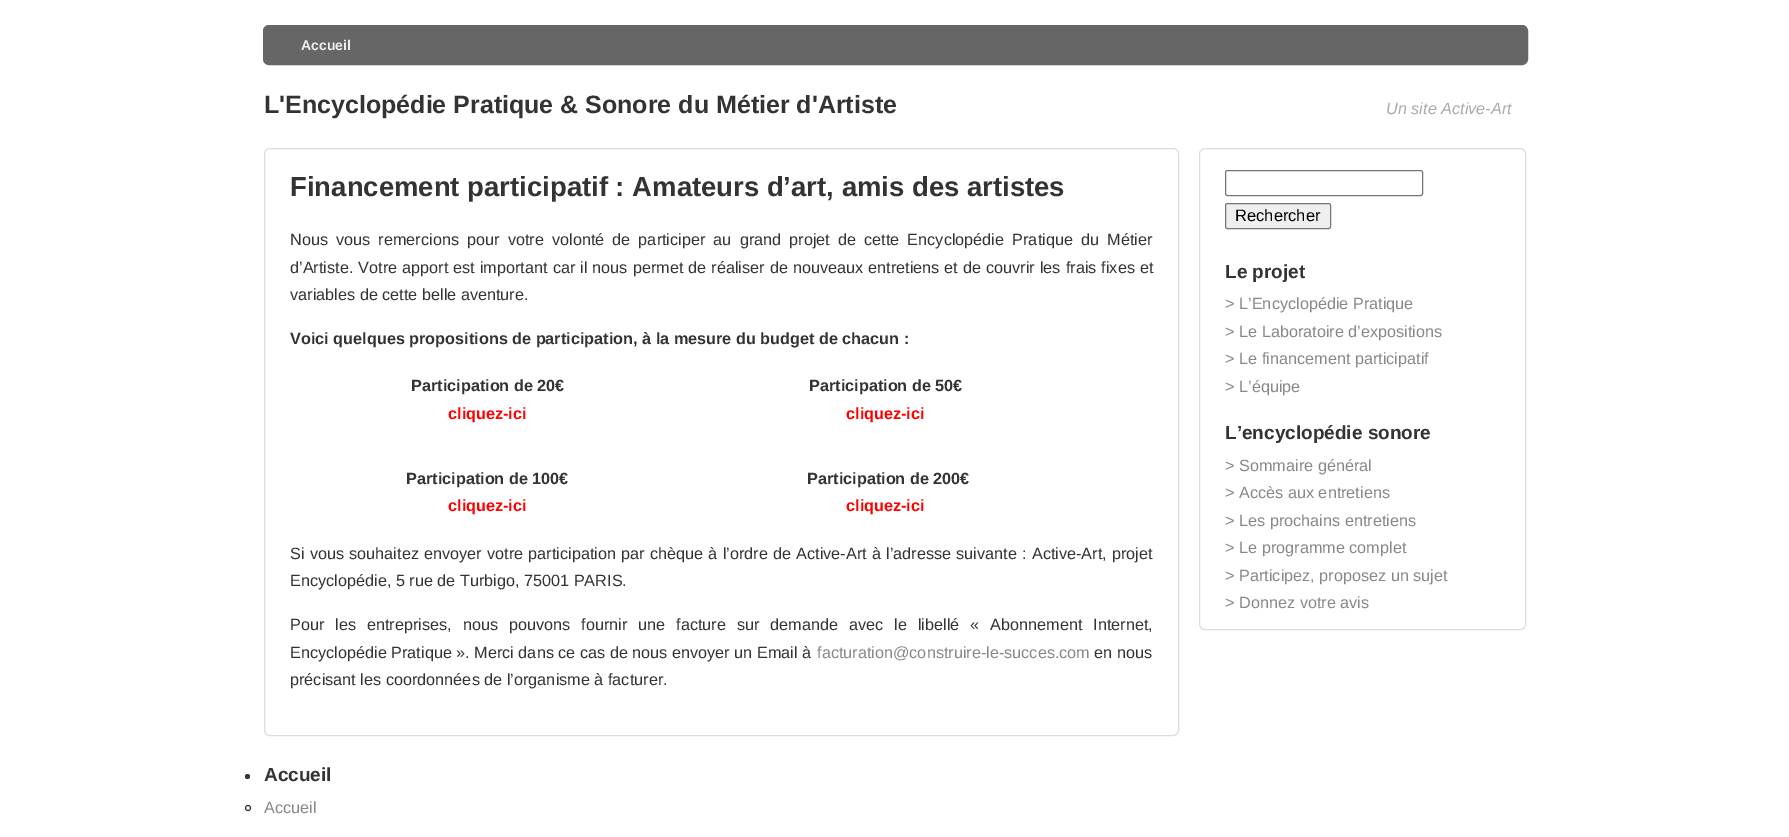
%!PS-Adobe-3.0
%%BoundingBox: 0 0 1789 837
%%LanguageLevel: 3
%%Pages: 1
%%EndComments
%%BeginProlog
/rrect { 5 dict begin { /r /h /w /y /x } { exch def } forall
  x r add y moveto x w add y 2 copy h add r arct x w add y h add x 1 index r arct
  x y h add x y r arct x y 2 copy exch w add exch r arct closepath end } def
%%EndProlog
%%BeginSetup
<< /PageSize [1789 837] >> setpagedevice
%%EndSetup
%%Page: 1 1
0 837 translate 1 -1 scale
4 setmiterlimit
1 setgray
0 0 1789 837 rectfill
0.4 setgray
263.5 25.5 1264 39 5.5 rrect gsave fill grestore
stroke
0.867 setgray
264.5 148.5 914 587 5.5 rrect stroke
1199.5 148.5 326 481 5.5 rrect stroke
0.463 setgray
1225.5 170.5 197 25 2 rrect stroke
0.937 setgray
1225.5 203.5 105 25 2 rrect gsave fill grestore
0.463 setgray
stroke
0.2 setgray
newpath 247.5 776.5 2.5 0 360 arc closepath fill
newpath 248 808 2.5 0 360 arc closepath stroke
/LiberationSans-Bold [14 0 0 -14 0 0] selectfont
0.933 setgray
301 50 moveto (Accueil) show
/LiberationSans-Bold [25 0 0 -25 0 0] selectfont
0.2 setgray
264 113 moveto (L'Encyclopédie Pratique & Sonore du Métier d'Artiste) show
/LiberationSans-Italic [16.25 0 0 -16.25 0 0] selectfont
0.667 setgray
1386 114 moveto (Un site Active-Art) show
/LiberationSans-Bold [27.5 0 0 -27.5 0 0] selectfont
0.2 setgray
290 196 moveto (Financement participatif : Amateurs d’art, amis des artistes) show
/LiberationSans-Regular [16.25 0 0 -16.25 0 0] selectfont
290 245 moveto 3.6 0 32 (Nous vous remercions pour votre volonté de participer au grand projet de cette Encyclopédie Pratique du Métier) widthshow
290 273 moveto 0.5 0 32 (d’Artiste. Votre apport est important car il nous permet de réaliser de nouveaux entretiens et de couvrir les frais fixes et) widthshow
290 300 moveto (variables de cette belle aventure.) show
/LiberationSans-Bold [16.25 0 0 -16.25 0 0] selectfont
290 344 moveto (Voici quelques propositions de participation, à la mesure du budget de chacun :) show
411 391 moveto (Participation de 20€) show
1 0 0 setrgbcolor
448 419 moveto (cliquez-ici) show
0.2 setgray
809 391 moveto (Participation de 50€) show
1 0 0 setrgbcolor
846 419 moveto (cliquez-ici) show
0.2 setgray
406 484 moveto (Participation de 100€) show
1 0 0 setrgbcolor
448 511 moveto (cliquez-ici) show
0.2 setgray
807 484 moveto (Participation de 200€) show
1 0 0 setrgbcolor
846 511 moveto (cliquez-ici) show
/LiberationSans-Regular [16.25 0 0 -16.25 0 0] selectfont
0.2 setgray
290 559 moveto 0.7 0 32 (Si vous souhaitez envoyer votre participation par chèque à l’ordre de Active-Art à l’adresse suivante : Active-Art, projet) widthshow
290 586 moveto (Encyclopédie, 5 rue de Turbigo, 75001 PARIS.) show
290 630 moveto 6.4 0 32 (Pour les entreprises, nous pouvons fournir une facture sur demande avec le libellé « Abonnement Internet,) widthshow
290 658 moveto (Encyclopédie Pratique ». Merci dans ce cas de nous envoyer un Email à) show
0.533 setgray
817 658 moveto (facturation@construire-le-succes.com) show
0.2 setgray
1094 658 moveto (en nous) show
290 685 moveto (précisant les coordonnées de l’organisme à facturer.) show
/LiberationSans-Regular [16.5 0 0 -16.5 0 0] selectfont
0 setgray
1235 221 moveto (Rechercher) show
/LiberationSans-Bold [19 0 0 -19 0 0] selectfont
0.2 setgray
1225 278 moveto (Le projet) show
/LiberationSans-Regular [16.25 0 0 -16.25 0 0] selectfont
0.533 setgray
1225 309 moveto (> L’Encyclopédie Pratique) show
1225 337 moveto (> Le Laboratoire d’expositions) show
1225 364 moveto (> Le financement participatif) show
1225 392 moveto (> L’équipe) show
/LiberationSans-Bold [19 0 0 -19 0 0] selectfont
0.2 setgray
1225 439 moveto (L’encyclopédie sonore) show
/LiberationSans-Regular [16.25 0 0 -16.25 0 0] selectfont
0.533 setgray
1225 471 moveto (> Sommaire général) show
1225 498 moveto (> Accès aux entretiens) show
1225 526 moveto (> Les prochains entretiens) show
1225 553 moveto (> Le programme complet) show
1225 581 moveto (> Participez, proposez un sujet) show
1225 608 moveto (> Donnez votre avis) show
/LiberationSans-Bold [19 0 0 -19 0 0] selectfont
0.2 setgray
264 781 moveto (Accueil) show
/LiberationSans-Regular [16.25 0 0 -16.25 0 0] selectfont
0.533 setgray
264 813 moveto (Accueil) show
showpage
%%EOF
